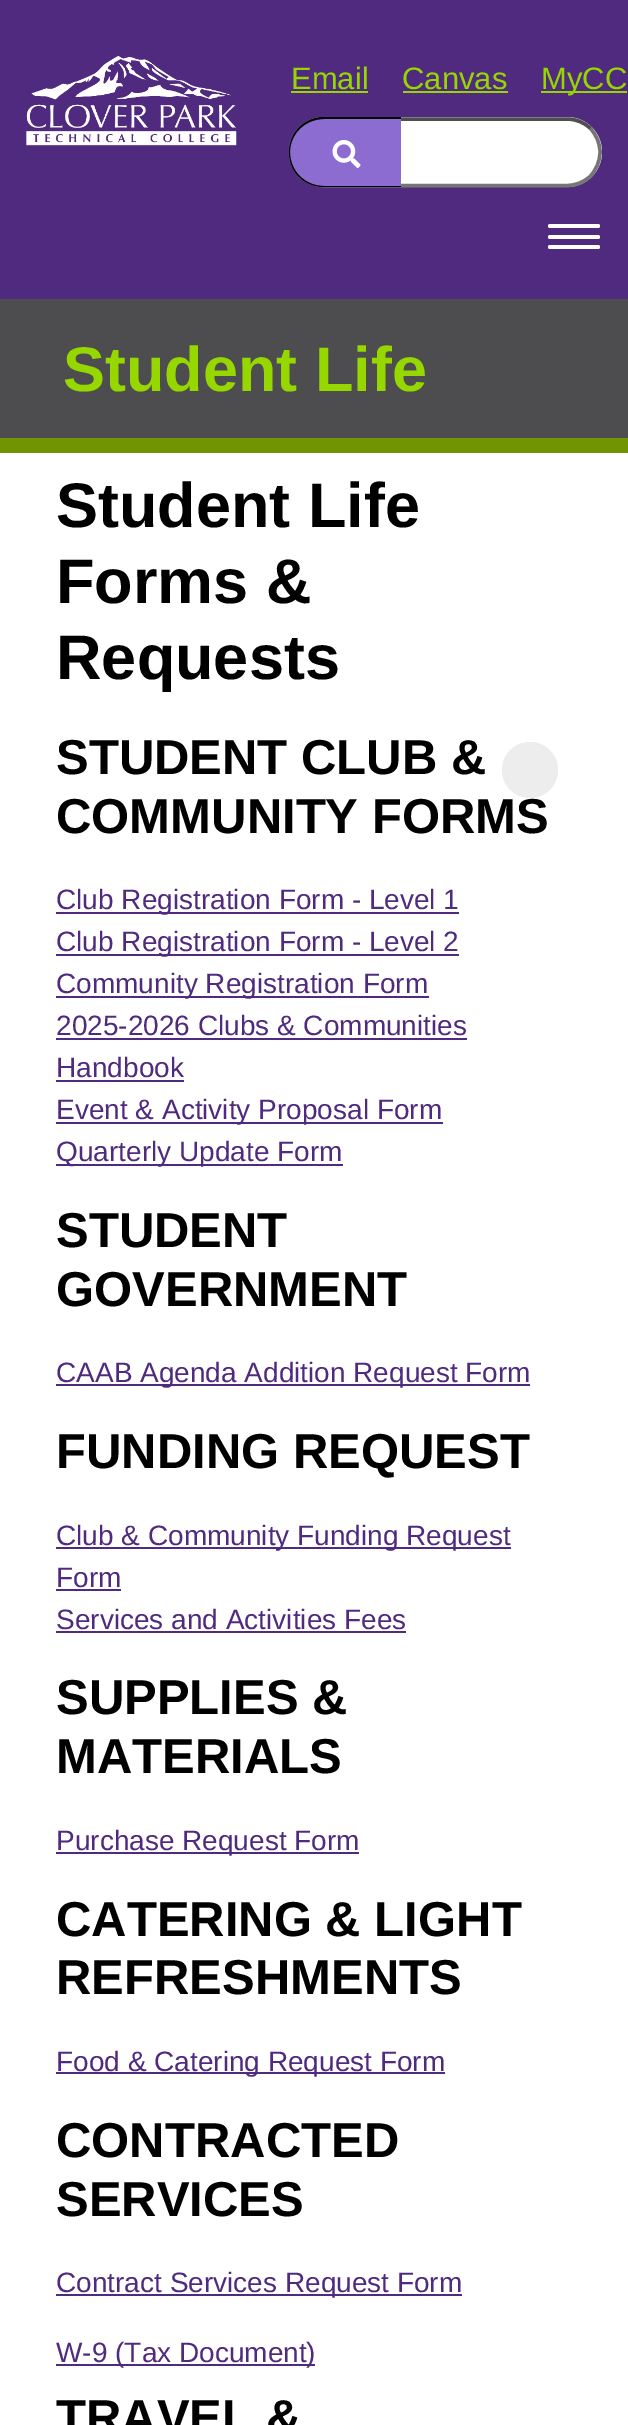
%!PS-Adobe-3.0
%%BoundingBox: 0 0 628 2425
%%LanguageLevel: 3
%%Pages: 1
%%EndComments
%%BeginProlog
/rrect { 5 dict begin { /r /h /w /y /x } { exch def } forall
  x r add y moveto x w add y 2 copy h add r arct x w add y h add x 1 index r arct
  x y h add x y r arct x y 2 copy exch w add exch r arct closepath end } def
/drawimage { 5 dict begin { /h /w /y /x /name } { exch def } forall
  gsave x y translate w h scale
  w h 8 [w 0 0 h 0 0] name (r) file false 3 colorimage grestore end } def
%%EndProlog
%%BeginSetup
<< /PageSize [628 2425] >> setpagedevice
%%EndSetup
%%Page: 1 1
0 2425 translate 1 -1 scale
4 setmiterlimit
1 setgray
0 0 628 2425 rectfill
0.314 0.165 0.498 setrgbcolor
0 0 628 299 rectfill
(images/1.raw) 26 56 211 90 drawimage
0.592 0.843 0 setrgbcolor
291 91 77 2 rectfill
403 91 105 2 rectfill
541 91 86 2 rectfill
1 setgray
289 117 313 70 35 rrect fill
0.463 setgray
3.5 setlinewidth
newpath 590.5 128.5 moveto 596.5 135 600 143.5 600 152 curveto 600 161 596.5 169.5 590.5 176 curveto 584.5 182 576 185.5 567 185.5 curveto 324 185.5 lineto 315 185.5 306.5 182 300 176 curveto stroke
0.31 setgray
newpath 300 176 moveto 294 169.5 290.5 161 290.5 152 curveto 290.5 143.5 294 135 300 128.5 curveto 306.5 122.5 315 119 324 119 curveto 567 119 lineto 576 119 584.5 122.5 590.5 128.5 curveto stroke
0.553 0.424 0.82 setrgbcolor
newpath 324 117 moveto 401 117 lineto 401 187 lineto 324 187 lineto 304.5 187 289 171.5 289 152 curveto 289 132.5 304.5 117 324 117 curveto closepath fill
0 setgray
newpath 324 117 moveto 401 117 lineto 401 187 lineto 324 187 lineto 304 187 289 172 289 152 curveto 289 133 304 117 324 117 curveto closepath 324 119 moveto 401 119 lineto 401 186 lineto 324 186 lineto 305 186 290 171 290 152 curveto 290 134 305 119 324 119 curveto closepath eofill
(images/2.raw) 332 140 29 28 drawimage
1 setgray
548 235 52 4 2 rrect fill
548 224 52 4 2 rrect fill
548 245 52 4 2 rrect fill
0.302 0.302 0.31 setrgbcolor
0 299 628 139 rectfill
0.443 0.584 0 setrgbcolor
0 438 628 15 rectfill
0.314 0.165 0.498 setrgbcolor
56 912 403 2 rectfill
56 954 403 2 rectfill
56 996 373 2 rectfill
56 1038 411 2 rectfill
56 1080 128 2 rectfill
56 1122 387 2 rectfill
56 1164 287 2 rectfill
56 1384 474 2 rectfill
56 1547 455 2 rectfill
56 1589 65 2 rectfill
56 1631 350 2 rectfill
56 1852 303 2 rectfill
56 2072 389 2 rectfill
56 2294 406 2 rectfill
56 2364 259 2 rectfill
0.929 setgray
newpath 530 770 28 0 360 arc closepath fill
/LiberationSans-Regular [31 0 0 -31 0 0] selectfont
0.592 0.843 0 setrgbcolor
291 89 moveto (Email) show
402 89 moveto (Canvas) show
541 89 moveto (MyCC) show
/LiberationSans-Bold [63 0 0 -63 0 0] selectfont
63 391 moveto (Student Life) show
0 setgray
56 527 moveto (Student Life) show
56 603 moveto (Forms &) show
56 679 moveto (Requests) show
/LiberationSans-Bold [49 0 0 -49 0 0] selectfont
56 774 moveto (STUDENT CLUB &) show
56 833 moveto (COMMUNITY FORMS) show
/LiberationSans-Regular [28 0 0 -28 0 0] selectfont
0.314 0.165 0.498 setrgbcolor
56 909 moveto (Club Registration Form - Level 1) show
56 951 moveto (Club Registration Form - Level 2) show
56 993 moveto (Community Registration Form) show
56 1035 moveto (2025-2026 Clubs & Communities) show
56 1077 moveto (Handbook) show
56 1119 moveto (Event & Activity Proposal Form) show
56 1161 moveto (Quarterly Update Form) show
/LiberationSans-Bold [49 0 0 -49 0 0] selectfont
0 setgray
56 1247 moveto (STUDENT) show
56 1306 moveto (GOVERNMENT) show
/LiberationSans-Regular [28 0 0 -28 0 0] selectfont
0.314 0.165 0.498 setrgbcolor
56 1382 moveto (CAAB Agenda Addition Request Form) show
/LiberationSans-Bold [49 0 0 -49 0 0] selectfont
0 setgray
56 1468 moveto (FUNDING REQUEST) show
/LiberationSans-Regular [28 0 0 -28 0 0] selectfont
0.314 0.165 0.498 setrgbcolor
56 1545 moveto (Club & Community Funding Request) show
56 1587 moveto (Form) show
56 1629 moveto (Services and Activities Fees) show
/LiberationSans-Bold [49 0 0 -49 0 0] selectfont
0 setgray
56 1714 moveto (SUPPLIES &) show
56 1773 moveto (MATERIALS) show
/LiberationSans-Regular [28 0 0 -28 0 0] selectfont
0.314 0.165 0.498 setrgbcolor
56 1850 moveto (Purchase Request Form) show
/LiberationSans-Bold [49 0 0 -49 0 0] selectfont
0 setgray
56 1936 moveto (CATERING & LIGHT) show
56 1994 moveto (REFRESHMENTS) show
/LiberationSans-Regular [28 0 0 -28 0 0] selectfont
0.314 0.165 0.498 setrgbcolor
56 2071 moveto (Food & Catering Request Form) show
/LiberationSans-Bold [49 0 0 -49 0 0] selectfont
0 setgray
56 2157 moveto (CONTRACTED) show
56 2216 moveto (SERVICES) show
/LiberationSans-Regular [28 0 0 -28 0 0] selectfont
0.314 0.165 0.498 setrgbcolor
56 2292 moveto (Contract Services Request Form) show
56 2362 moveto (W-9 \(Tax Document\)) show
/LiberationSans-Bold [49 0 0 -49 0 0] selectfont
0 setgray
56 2434 moveto (TRAVEL &) show
showpage
%%EOF
